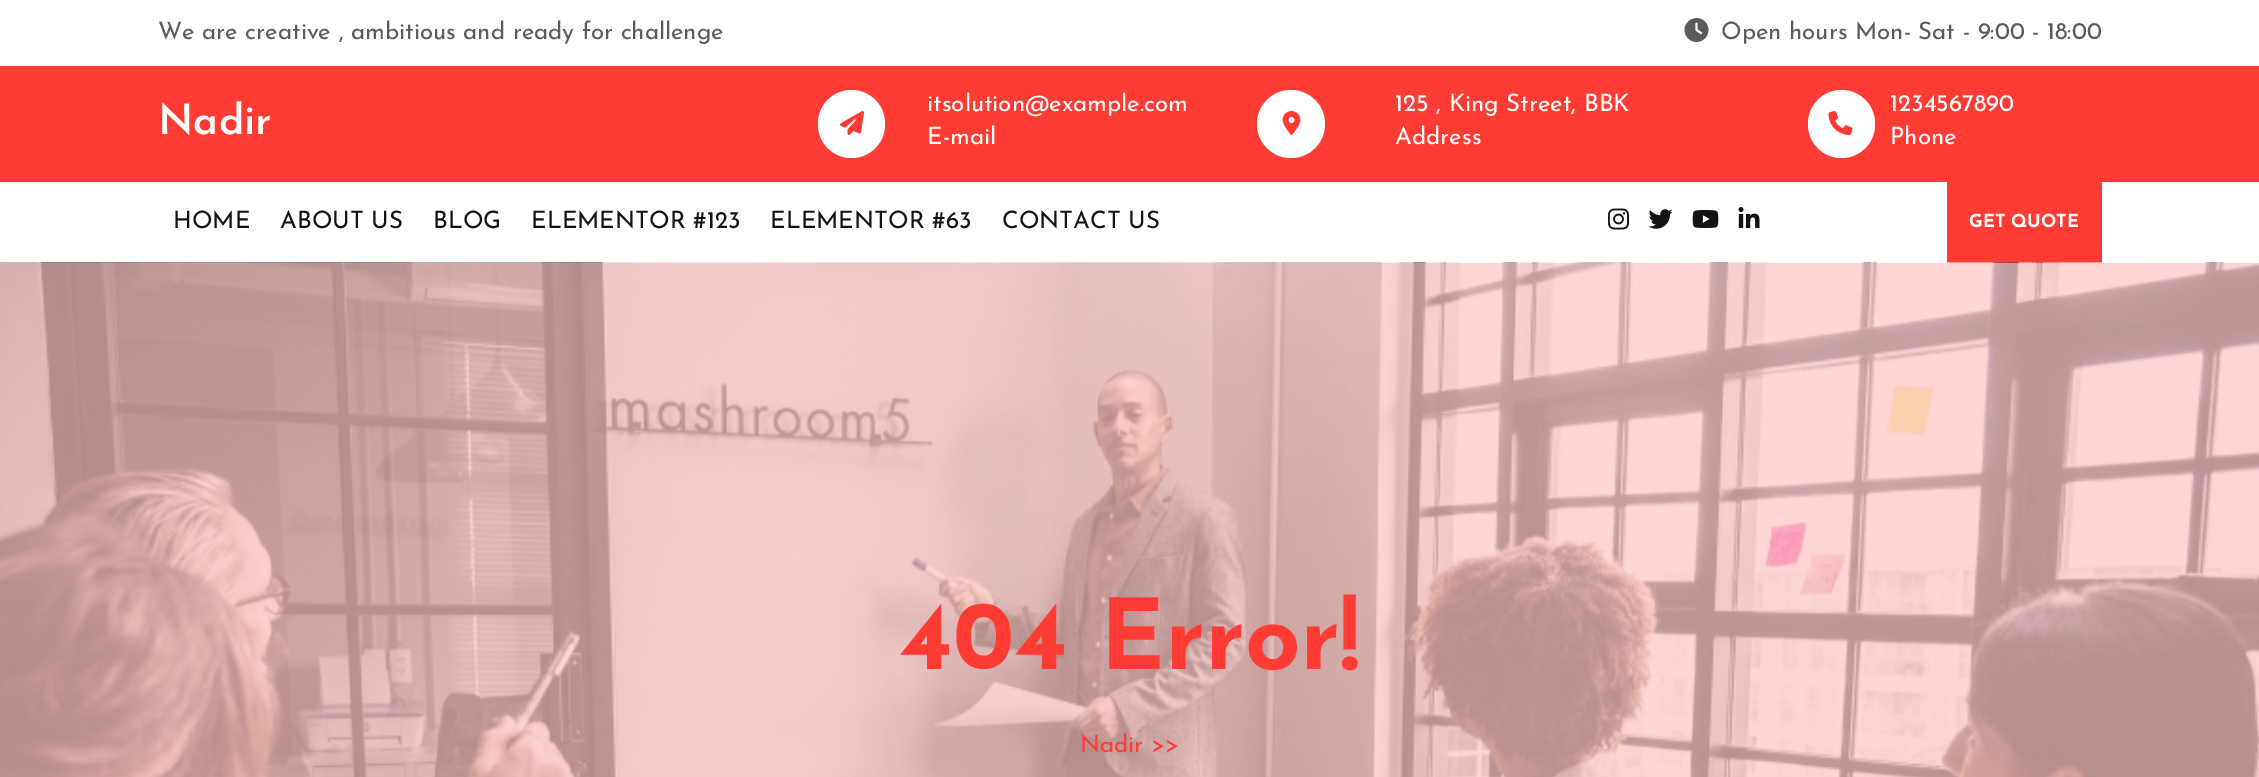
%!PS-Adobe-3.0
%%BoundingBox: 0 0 2259 777
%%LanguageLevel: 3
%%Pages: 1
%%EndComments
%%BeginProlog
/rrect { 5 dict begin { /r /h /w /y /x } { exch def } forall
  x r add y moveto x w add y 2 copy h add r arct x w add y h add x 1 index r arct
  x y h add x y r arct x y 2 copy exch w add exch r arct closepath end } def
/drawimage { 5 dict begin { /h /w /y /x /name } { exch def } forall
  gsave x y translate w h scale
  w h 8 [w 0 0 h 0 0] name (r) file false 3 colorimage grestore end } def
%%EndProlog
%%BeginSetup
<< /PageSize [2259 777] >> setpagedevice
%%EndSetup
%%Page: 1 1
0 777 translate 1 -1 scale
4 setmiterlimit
1 setgray
0 0 2259 777 rectfill
(images/1.raw) 1684 18 25 24 drawimage
1 0.235 0.204 setrgbcolor
0 66 2259 116 rectfill
1 setgray
818 90 67 68 33.5 rrect fill
(images/2.raw) 840 111 24 24 drawimage
newpath 1291 124 34 0 360 arc closepath fill
(images/3.raw) 1282 111 19 24 drawimage
1808 90 67 68 33.5 rrect fill
(images/4.raw) 1828 111 25 24 drawimage
(images/5.raw) 1608 208 21 22 drawimage
(images/6.raw) 1648 209 25 20 drawimage
(images/7.raw) 1692 210 27 18 drawimage
(images/8.raw) 1738 207 22 21 drawimage
1 0.235 0.204 setrgbcolor
1947 182 155 81 rectfill
(images/9.raw) 0 262 2259 515 drawimage
/JosefinSans-Regular [24 0 0 -24 0 0] selectfont
0.357 setgray
158 39 moveto (We are creative , ambitious and ready for challenge) show
1721 39 moveto (Open hours Mon- Sat - 9:00 - 18:00) show
/JosefinSans-SemiBold [42 0 0 -42 0 0] selectfont
1 setgray
158 134 moveto (Nadir) show
/JosefinSans-Regular [24 0 0 -24 0 0] selectfont
927 111 moveto (itsolution@example.com) show
927 144 moveto (E-mail) show
1395 111 moveto (125 , King Street, BBK) show
1395 144 moveto (Address) show
1890 111 moveto (1234567890) show
1890 144 moveto (Phone) show
0.071 setgray
173 228 moveto (HOME) show
280 228 moveto (ABOUT US) show
433 228 moveto (BLOG) show
531 228 moveto (ELEMENTOR #123) show
770 228 moveto (ELEMENTOR #63) show
1002 228 moveto (CONTACT US) show
/JosefinSans-Thin [18 0 0 -18 0 0] selectfont
1 setgray
1969 227 moveto (GET QUOTE) show
/JosefinSans-Thin [97.5 0 0 -97.5 0 0] selectfont
1 0.235 0.204 setrgbcolor
899 669 moveto (404 Error!) show
/JosefinSans-Regular [24 0 0 -24 0 0] selectfont
1080 752 moveto (Nadir) show
1151 752 moveto (>>) show
showpage
%%EOF
